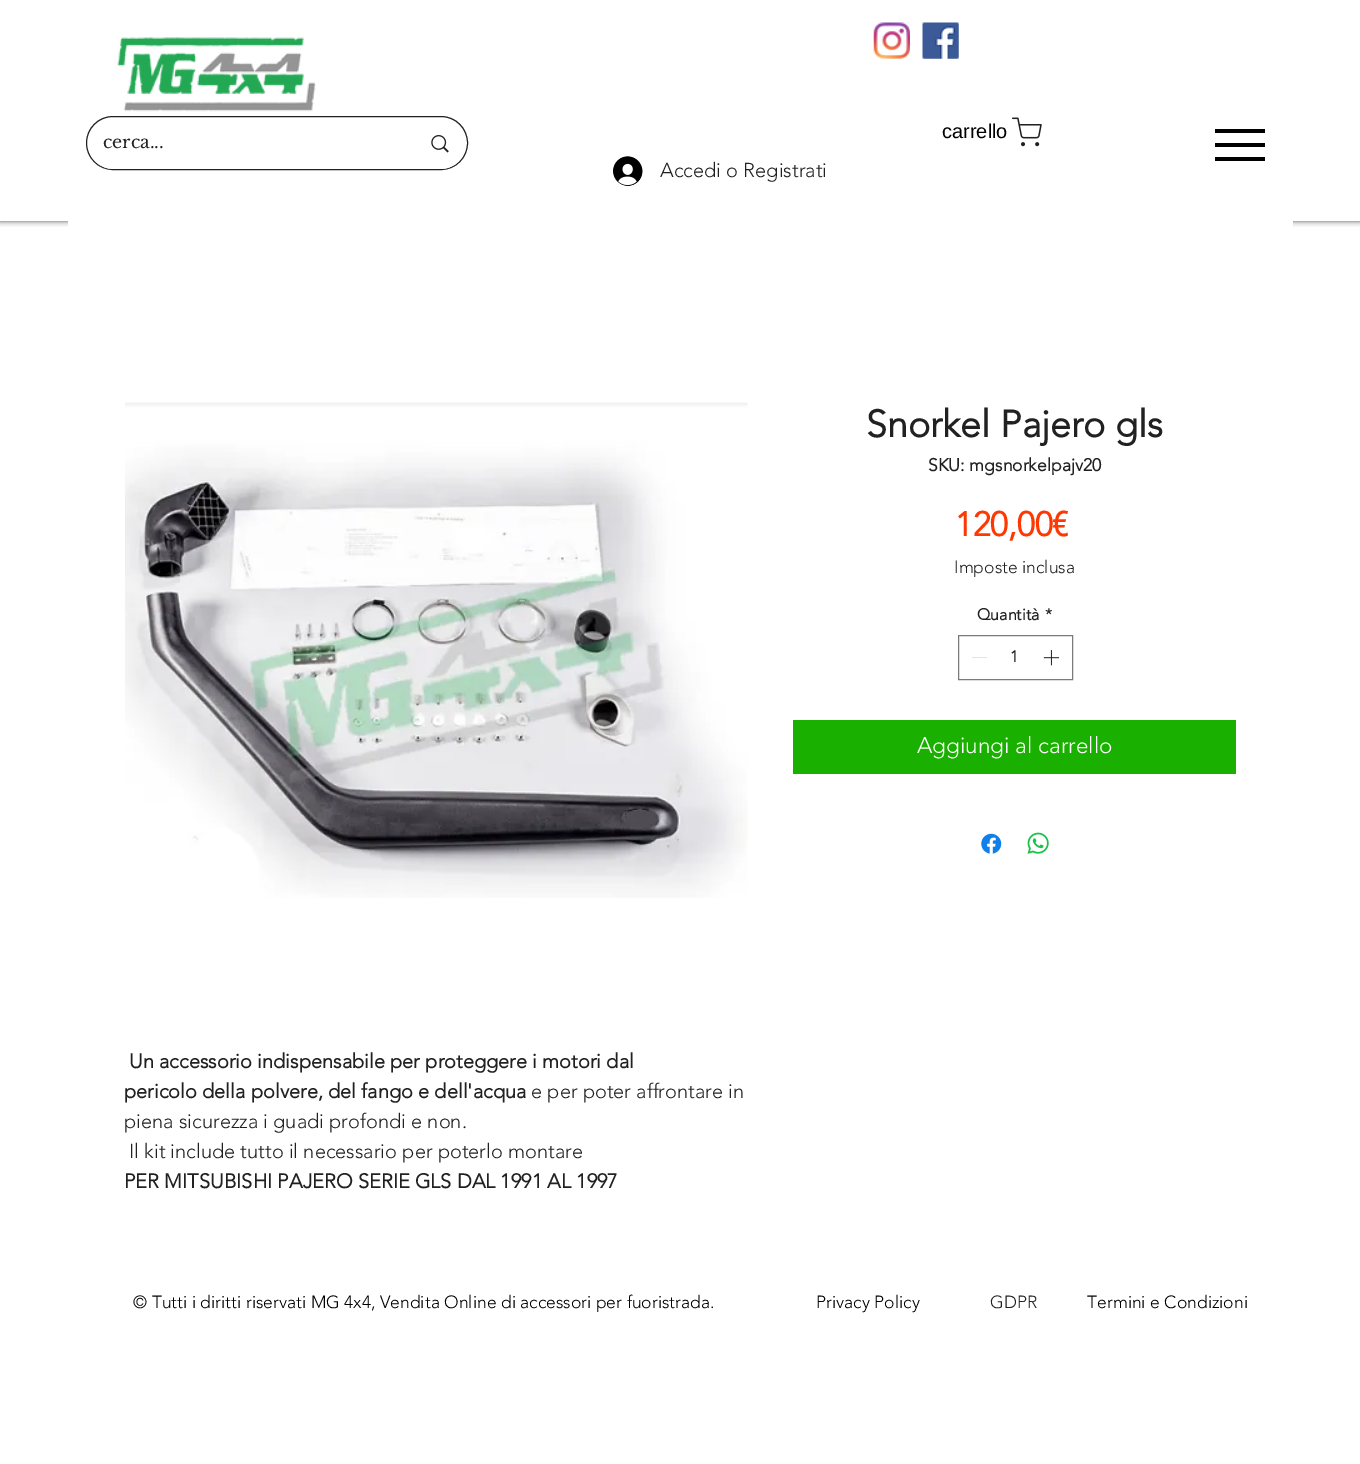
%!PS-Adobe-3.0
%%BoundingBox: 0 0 1360 1464
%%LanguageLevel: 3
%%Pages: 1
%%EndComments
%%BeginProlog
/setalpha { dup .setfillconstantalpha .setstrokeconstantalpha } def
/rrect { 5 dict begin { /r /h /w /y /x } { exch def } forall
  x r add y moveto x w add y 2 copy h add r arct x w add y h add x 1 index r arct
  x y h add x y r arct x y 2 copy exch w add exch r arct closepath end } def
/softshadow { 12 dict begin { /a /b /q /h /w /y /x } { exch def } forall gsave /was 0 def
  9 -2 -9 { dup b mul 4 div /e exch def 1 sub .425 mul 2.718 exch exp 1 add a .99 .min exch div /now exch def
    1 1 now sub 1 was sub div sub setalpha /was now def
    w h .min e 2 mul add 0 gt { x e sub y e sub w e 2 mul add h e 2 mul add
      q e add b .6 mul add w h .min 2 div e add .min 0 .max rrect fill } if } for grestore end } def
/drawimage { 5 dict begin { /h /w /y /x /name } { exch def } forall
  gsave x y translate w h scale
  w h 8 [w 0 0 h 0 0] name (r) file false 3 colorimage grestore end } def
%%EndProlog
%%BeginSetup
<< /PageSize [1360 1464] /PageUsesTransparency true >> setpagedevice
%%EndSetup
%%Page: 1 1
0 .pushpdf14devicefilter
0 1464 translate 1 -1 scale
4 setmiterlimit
1 setgray
0 0 1360 1464 rectfill
gsave
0 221 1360 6 rectclip
0 setgray
0 0 1360 221 0 3 0.7 softshadow
grestore
(images/1.raw) 117 37 199 75 drawimage
(images/2.raw) 873 22 37 37 drawimage
(images/3.raw) 922 22 37 37 drawimage
0.129 setgray
86.5 116.5 381 53 26.5 rrect stroke
1 setgray
88 118 378 51 25.5 rrect fill
(images/4.raw) 431 135 18 18 drawimage
(images/5.raw) 1012 117 30 30 drawimage
0 setgray
1215 157 50 4 rectfill
1215 129 50 4 rectfill
1215 143 50 4 rectfill
(images/6.raw) 613 156 30 30 drawimage
1 setgray
68 221 1225 7 rectfill
0.478 setgray
958.5 635.5 114 44 rectstroke
0.89 setgray
972 657 15 1 rectfill
(images/7.raw) 1043 650 17 16 drawimage
0.102 0.69 0 setrgbcolor
793 720 443 54 rectfill
(images/8.raw) 981 833 21 21 drawimage
(images/9.raw) 1027 832 22 22 drawimage
(images/10.raw) 125 402 623 496 drawimage
/LibreBaskerville-Regular [17.5 0 0 -17.5 0 0] selectfont
0.129 setgray
103 148 moveto (cerca...) show
/LiberationSans-Regular [20 0 0 -20 0 0] selectfont
0 setgray
942 138 moveto (carrello) show
/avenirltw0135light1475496-Light [20 0 0 -20 0 0] selectfont
0.129 setgray
660 177 moveto (Accedi o Registrati) show
/avenirltw0135light1475496-Bold [37.5 0 0 -37.5 0 0] selectfont
866 437 moveto (Snorkel Pajero gls) show
/avenirltw0135light1475496-Bold [17.5 0 0 -17.5 0 0] selectfont
928 471 moveto (SKU: mgsnorkelpajv20) show
/avenirltw0135light1475496-Bold [34 0 0 -34 0 0] selectfont
1 0.216 0 setrgbcolor
955 536 moveto (120,00€) show
/avenirltw0135light1475496-Light [17.5 0 0 -17.5 0 0] selectfont
0.129 setgray
954 573 moveto (Imposte inclusa) show
/avenirltw0135light1475496-Bold [16 0 0 -16 0 0] selectfont
977 620 moveto (Quantità) show
1045 620 moveto (*) show
1010 662 moveto (1) show
/avenirltw0135light1475496-Light [22.5 0 0 -22.5 0 0] selectfont
1 setgray
917 753 moveto (Aggiungi al carrello) show
/avenirltw0135light1475496-Bold [20 0 0 -20 0 0] selectfont
0.129 setgray
129 1068 moveto (Un accessorio indispensabile per proteggere i motori dal) show
124 1098 moveto (pericolo della polvere, del fango e dell'acqua) show
/avenirltw0135light1475496-Light [20 0 0 -20 0 0] selectfont
531 1098 moveto (e per poter affrontare in) show
124 1128 moveto (piena sicurezza i guadi profondi e non.) show
129 1158 moveto (Il kit include tutto il necessario per poterlo montare) show
/avenirltw0135light1475496-Bold [20 0 0 -20 0 0] selectfont
124 1188 moveto (PER MITSUBISHI PAJERO SERIE GLS DAL 1991 AL 1997) show
/avenirltw0135light1475496-Light [17.5 0 0 -17.5 0 0] selectfont
0 setgray
133 1308 moveto (© Tutti i diritti riservati MG 4x4, Vendita Online di accessori per fuoristrada.) show
816 1308 moveto (Privacy Policy) show
0.129 setgray
990 1308 moveto (GDPR) show
0 setgray
1087 1308 moveto (Termini e Condizioni) show
.poppdf14devicefilter showpage
%%EOF
